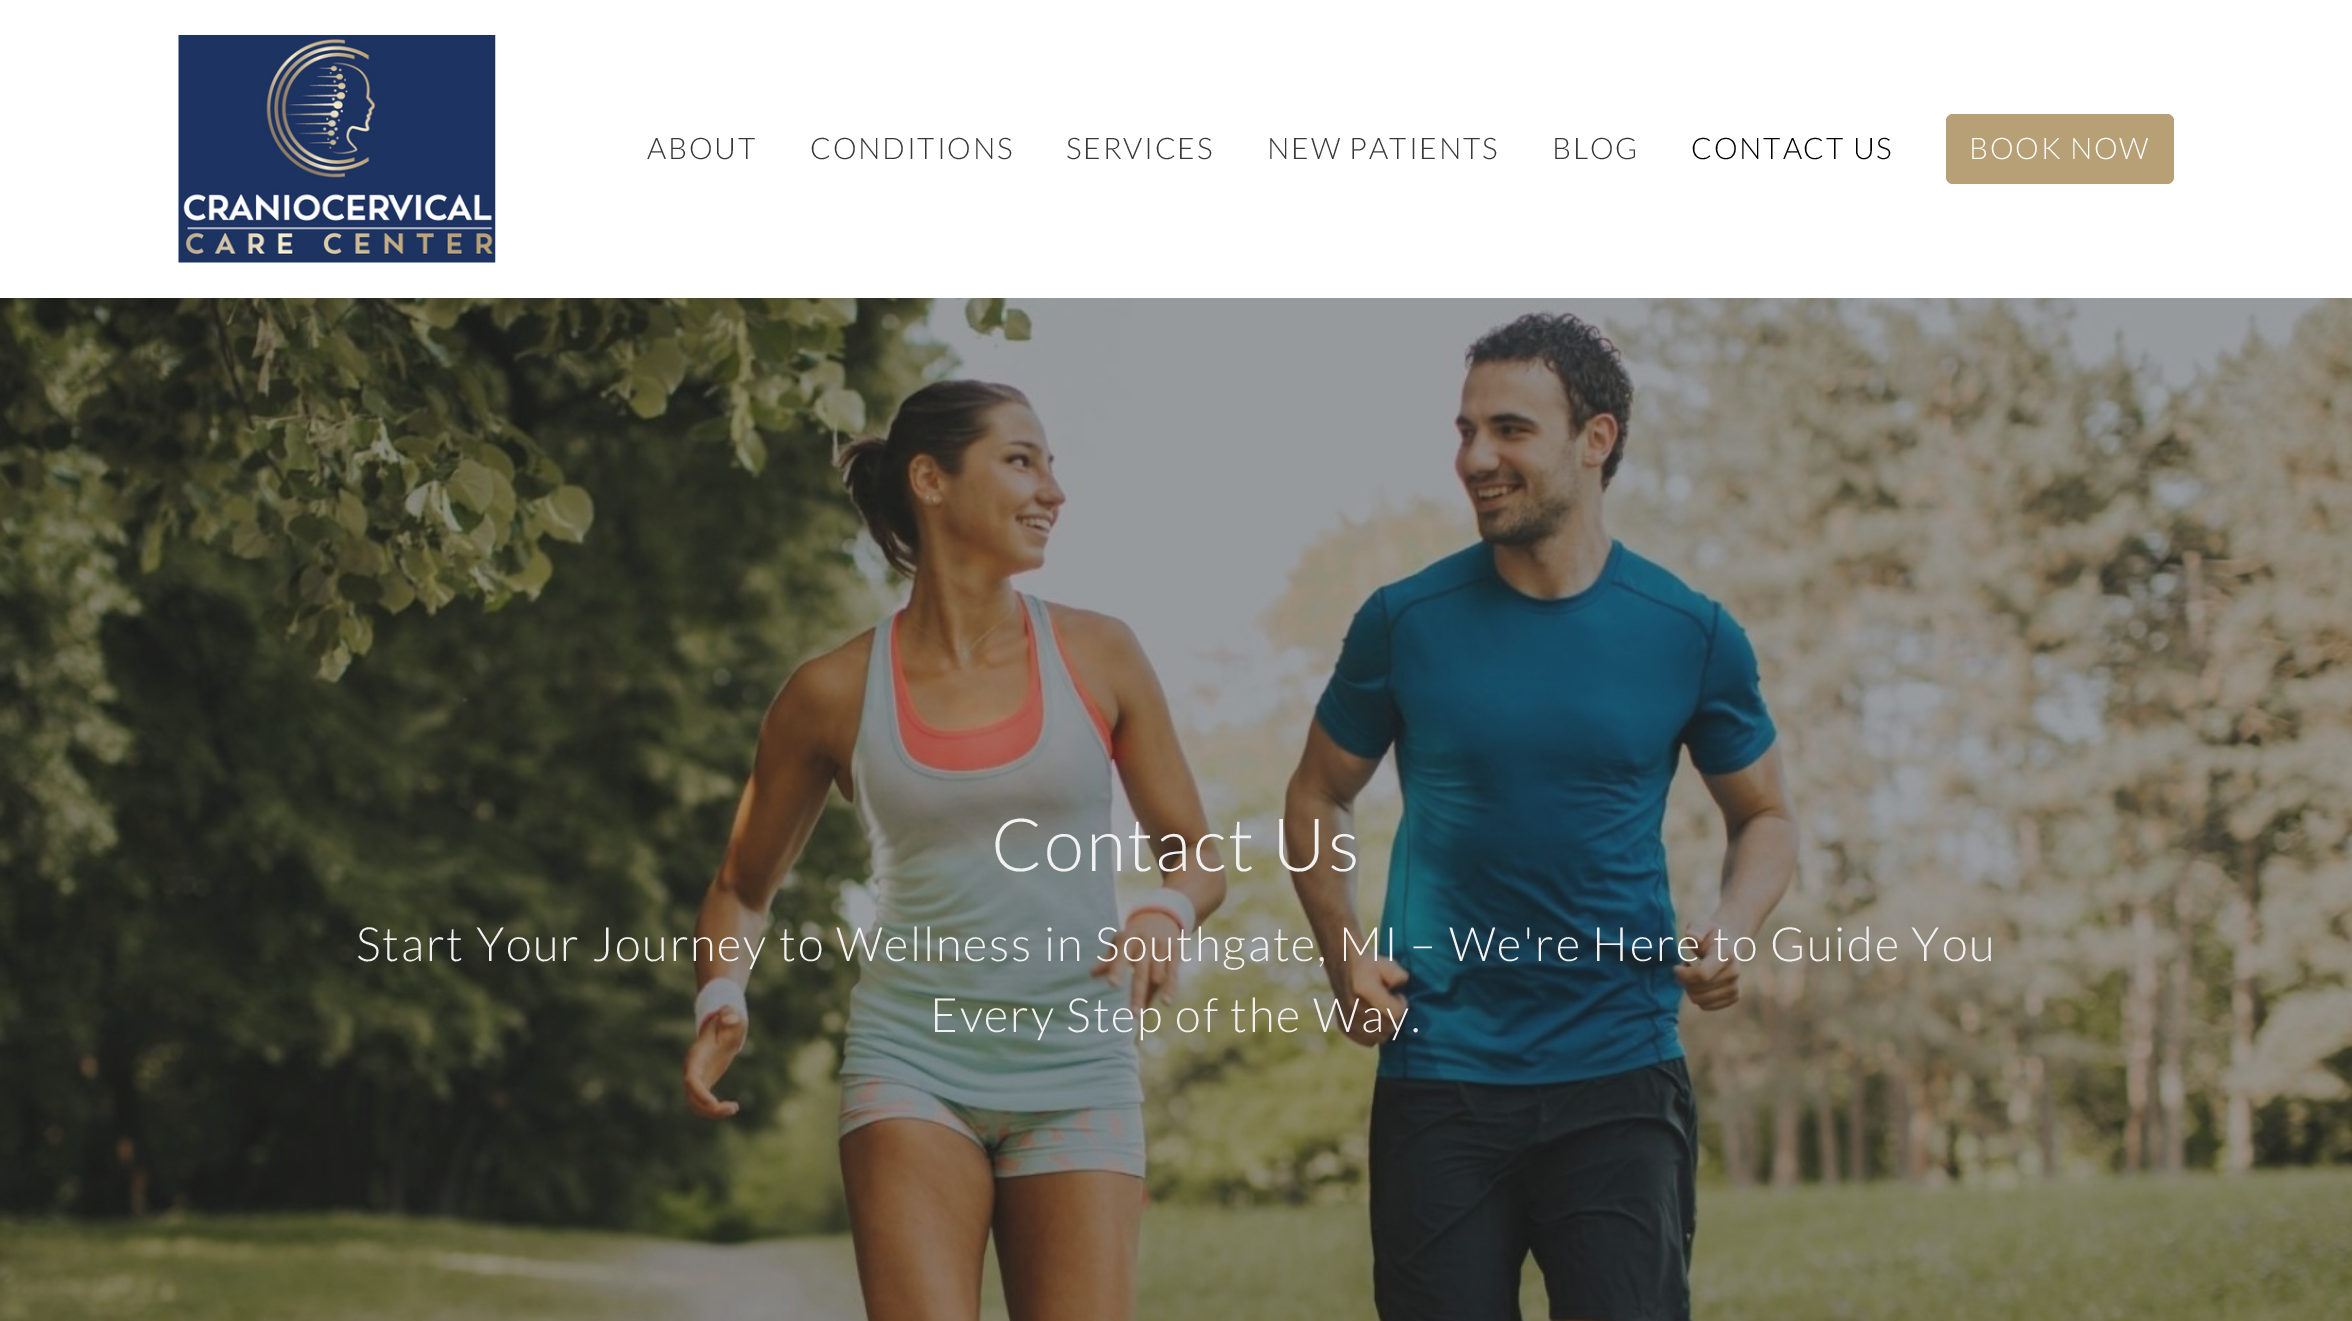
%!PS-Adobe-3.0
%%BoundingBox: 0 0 2352 1321
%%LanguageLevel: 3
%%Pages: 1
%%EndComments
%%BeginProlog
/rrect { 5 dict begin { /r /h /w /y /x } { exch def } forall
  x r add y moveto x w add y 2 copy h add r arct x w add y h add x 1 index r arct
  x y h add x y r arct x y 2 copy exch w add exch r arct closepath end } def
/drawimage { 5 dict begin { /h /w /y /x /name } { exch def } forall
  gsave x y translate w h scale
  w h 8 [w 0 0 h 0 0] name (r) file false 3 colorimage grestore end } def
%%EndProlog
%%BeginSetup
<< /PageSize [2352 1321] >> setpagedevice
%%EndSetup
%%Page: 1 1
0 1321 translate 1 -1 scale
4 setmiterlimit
1 setgray
0 0 2352 1321 rectfill
(images/1.raw) 178 35 318 228 drawimage
0.722 0.627 0.463 setrgbcolor
1946 114 228 70 7 rrect fill
(images/2.raw) 0 298 2352 1023 drawimage
/Lato-Light [29.75 0 0 -29.75 0 0] selectfont
0.22 setgray
647 159 moveto 1.75 0 (ABOUT) ashow
810 159 moveto 1.75 0 (CONDITIONS) ashow
1066 159 moveto 1.75 0 (SERVICES) ashow
1267 159 moveto 1.75 0 (NEW PATIENTS) ashow
1552 159 moveto 1.75 0 (BLOG) ashow
0 setgray
1691 159 moveto 1.75 0 (CONTACT US) ashow
1 setgray
1969 159 moveto 1.75 0 (BOOK NOW) ashow
/Lato-Light [73.5 0 0 -73.5 0 0] selectfont
0.945 setgray
991 871 moveto 1.75 0 (Contact Us) ashow
/Lato-Light [47.25 0 0 -47.25 0 0] selectfont
356 961 moveto 1.75 0 (Start Your Journey to Wellness in Southgate, MI – We're Here to Guide You) ashow
930 1032 moveto 1.75 0 (Every Step of the Way.) ashow
showpage
%%EOF
